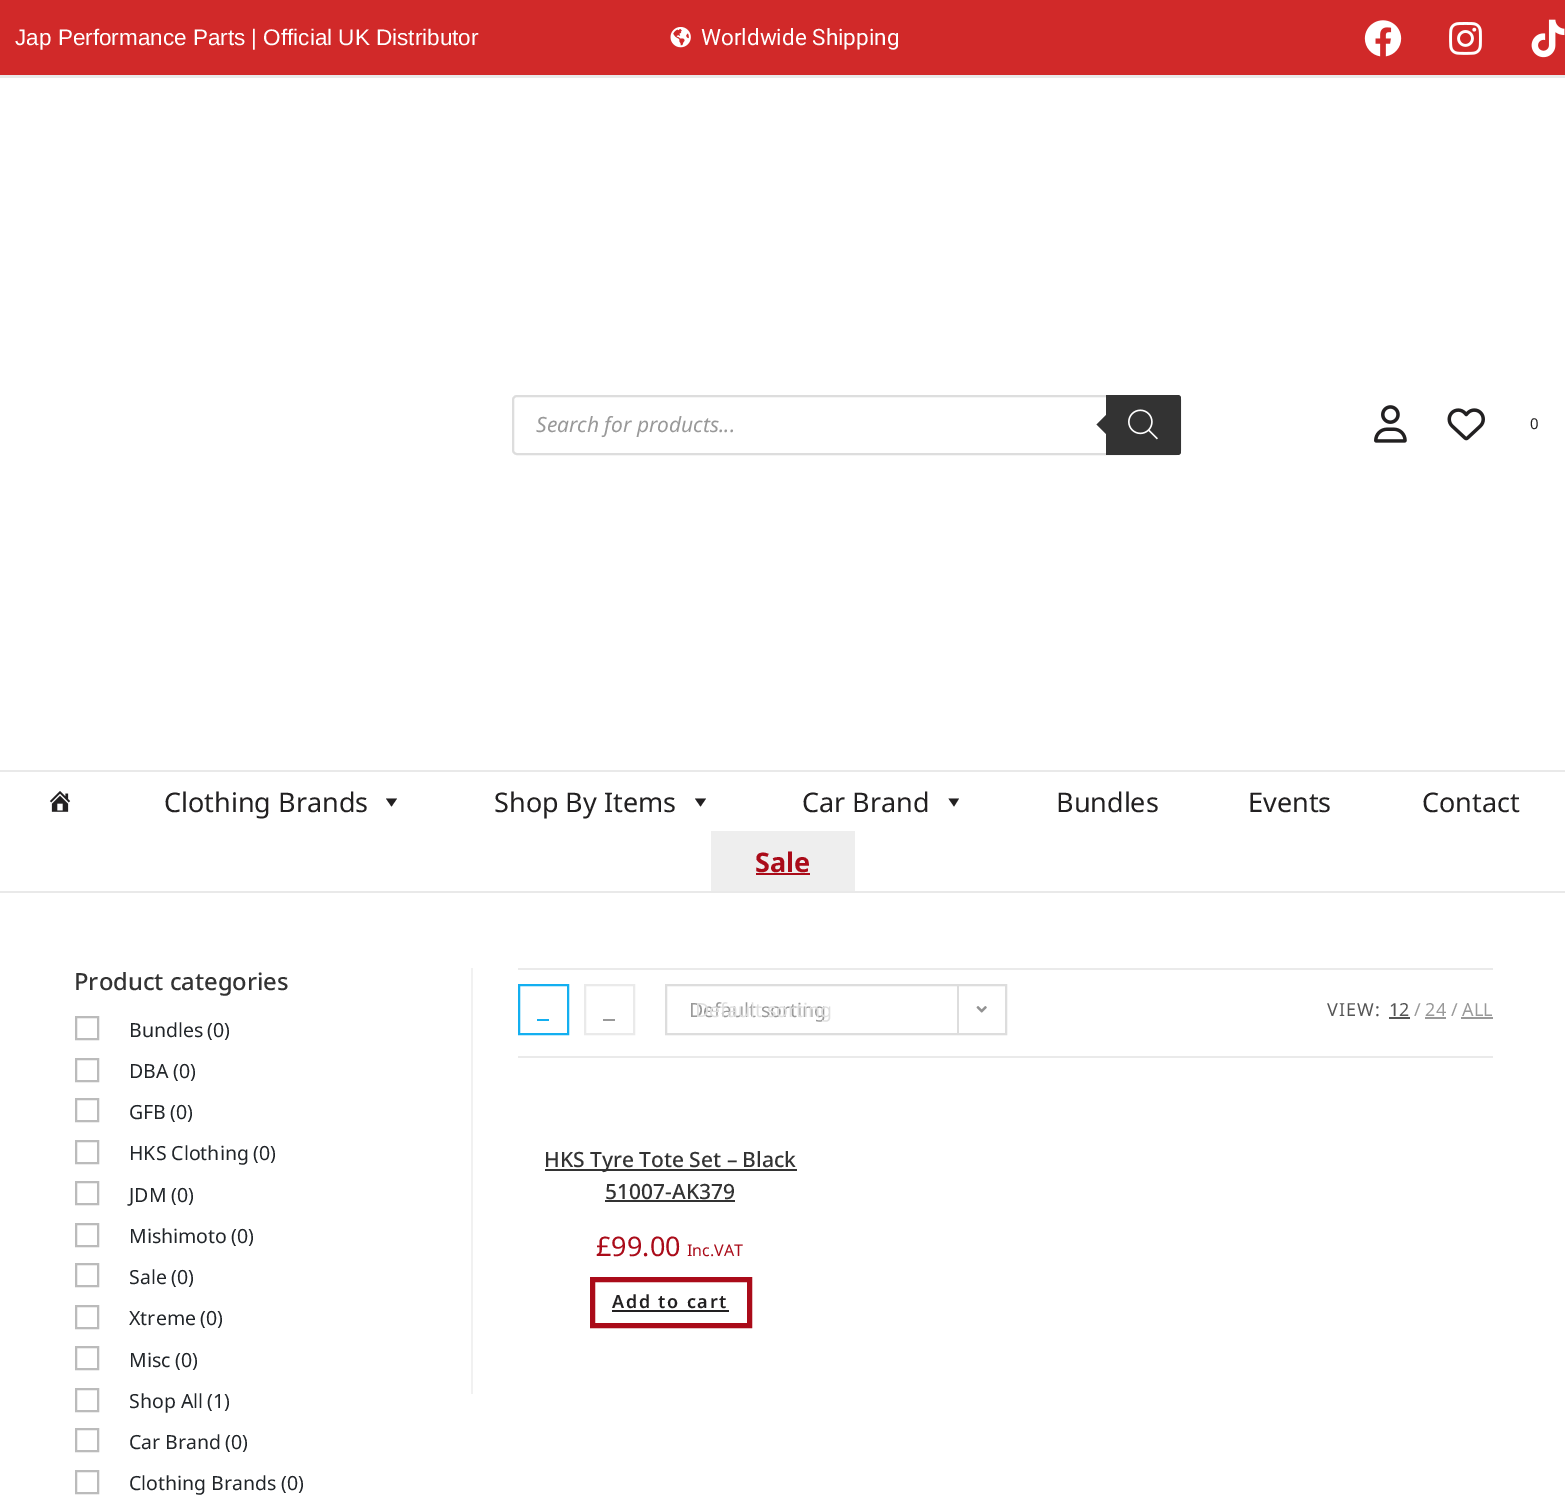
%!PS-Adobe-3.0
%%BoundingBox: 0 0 1565 1505
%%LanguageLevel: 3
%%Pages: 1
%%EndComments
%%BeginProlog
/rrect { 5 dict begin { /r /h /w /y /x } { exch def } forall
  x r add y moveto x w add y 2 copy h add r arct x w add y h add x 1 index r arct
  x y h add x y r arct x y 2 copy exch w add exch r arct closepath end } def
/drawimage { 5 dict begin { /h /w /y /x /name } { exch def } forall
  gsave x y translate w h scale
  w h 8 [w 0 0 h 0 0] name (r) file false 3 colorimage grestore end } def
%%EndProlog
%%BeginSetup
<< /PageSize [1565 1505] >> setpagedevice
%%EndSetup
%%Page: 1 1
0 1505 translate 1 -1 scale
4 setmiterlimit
1 setgray
0 0 1565 1505 rectfill
0.82 0.161 0.161 setrgbcolor
0 0 1565 75 rectfill
0.914 setgray
0 75 1565 3 rectfill
(images/1.raw) 670 27 21 21 drawimage
(images/2.raw) 1364 20 38 37 drawimage
(images/3.raw) 1449 22 33 33 drawimage
(images/4.raw) 1531 19 34 39 drawimage
0 891 1565 2 rectfill
0 770 1565 2 rectfill
0.867 setgray
2 setlinewidth
513 396 667 58 4 rrect stroke
0.2 setgray
newpath 1106 395 moveto 1178 395 lineto 1179.5 395 1181 396.5 1181 398 curveto 1181 452 lineto 1181 453.5 1179.5 455 1178 455 curveto 1106 455 lineto closepath fill
newpath 1108.5 412.5 moveto 1108.5 436.5 lineto 1096.5 424.5 lineto closepath fill
(images/5.raw) 1128 409 30 31 drawimage
(images/6.raw) 1374 405 33 38 drawimage
(images/7.raw) 1447 408 38 33 drawimage
(images/8.raw) 49 791 22 21 drawimage
0.133 0.125 0.129 setrgbcolor
newpath 397 798.5 moveto 391.5 806.5 lineto 386 798.5 lineto closepath fill
newpath 706 798.5 moveto 700.5 806.5 lineto 695 798.5 lineto closepath fill
newpath 959 798.5 moveto 954 806.5 lineto 948.5 798.5 lineto closepath fill
0.933 setgray
711 831 144 60 rectfill
0.667 0.043 0.098 setrgbcolor
756 873 54 2 rectfill
0.733 setgray
76 1017 22 22 rectstroke
76 1059 22 22 rectstroke
76 1099 22 22 rectstroke
76 1141 22 22 rectstroke
76 1182 22 22 rectstroke
76 1224 22 22 rectstroke
76 1264 22 22 rectstroke
76 1306 22 22 rectstroke
76 1347 22 22 rectstroke
76 1389 22 22 rectstroke
76 1429 22 22 rectstroke
76 1471 22 22 rectstroke
0.945 setgray
471 968 2 426 rectfill
0.918 setgray
518 968 975 2 rectfill
518 1056 975 2 rectfill
0.075 0.686 0.941 setrgbcolor
519 985 49 49 rectstroke
537 1019 12 2 rectfill
0.918 setgray
585 985 49 49 rectstroke
0.6 setgray
603 1019 12 2 rectfill
0.867 setgray
666 985 340 49 rectstroke
957 986 2 48 rectfill
(images/9.raw) 976 1006 11 7 drawimage
0.333 setgray
1389 1017 21 2 rectfill
0.6 setgray
1425 1017 21 2 rectfill
1461 1017 32 2 rectfill
0.2 setgray
545 1169 252 2 rectfill
605 1200 130 2 rectfill
0.667 0.043 0.098 setrgbcolor
5 setlinewidth
592.5 1279.5 157 46 rectstroke
0.133 0.125 0.129 setrgbcolor
612 1310 117 2 rectfill
/LiberationSans-Regular [22.5 0 0 -22.5 0 0] selectfont
1 setgray
15 45 moveto (Jap Performance Parts | Official UK Distributor) show
/Roboto-Regular [22.5 0 0 -22.5 0 0] selectfont
701 45 moveto (Worldwide Shipping) show
/NotoSans-Italic [21 0 0 -21 0 0] selectfont
0.6 setgray
536 432 moveto (Search for products...) show
/NotoSans-Regular [15 0 0 -15 0 0] selectfont
0.133 0.125 0.129 setrgbcolor
1530 429 moveto (0) show
/NotoSans-Regular [27 0 0 -27 0 0] selectfont
164 812 moveto (Clothing Brands) show
494 812 moveto (Shop By Items) show
802 812 moveto (Car Brand) show
1056 812 moveto (Bundles) show
1248 812 moveto (Events) show
1422 812 moveto (Contact) show
/NotoSans-Bold [27 0 0 -27 0 0] selectfont
0.667 0.043 0.098 setrgbcolor
755 872 moveto (Sale) show
/NotoSans-Medium [23.75 0 0 -23.75 0 0] selectfont
0.2 setgray
74 990 moveto (Product categories) show
/NotoSans-Regular [19.5 0 0 -19.5 0 0] selectfont
0.129 0.145 0.161 setrgbcolor
129 1037 moveto (Bundles) show
207 1037 moveto (\(0\)) show
129 1078 moveto (DBA) show
173 1078 moveto (\(0\)) show
129 1119 moveto (GFB) show
170 1119 moveto (\(0\)) show
129 1160 moveto (HKS Clothing) show
253 1160 moveto (\(0\)) show
129 1202 moveto (JDM) show
171 1202 moveto (\(0\)) show
129 1243 moveto (Mishimoto) show
231 1243 moveto (\(0\)) show
129 1284 moveto (Sale) show
171 1284 moveto (\(0\)) show
129 1325 moveto (Xtreme) show
200 1325 moveto (\(0\)) show
129 1367 moveto (Misc) show
175 1367 moveto (\(0\)) show
129 1408 moveto (Shop All) show
207 1408 moveto (\(1\)) show
129 1449 moveto (Car Brand) show
225 1449 moveto (\(0\)) show
129 1490 moveto (Clothing Brands) show
281 1490 moveto (\(0\)) show
0.6 setgray
689 1017 moveto (Default sorting) show
0.875 setgray
695 1017 moveto (Default sorting) show
/NotoSans-Regular [18 0 0 -18 0 0] selectfont
0.333 setgray
1327 1016 moveto 1 0 (VIEW:) ashow
1389 1016 moveto (12) show
0.6 setgray
1414 1016 moveto (/ 24 / ALL) show
/NotoSans-Medium [21 0 0 -21 0 0] selectfont
0.2 setgray
544 1167 moveto (HKS Tyre Tote Set – Black) show
605 1199 moveto (51007-AK379) show
/NotoSans-Regular [27 0 0 -27 0 0] selectfont
0.667 0.043 0.098 setrgbcolor
596 1256 moveto (£99.00) show
/NotoSans-Regular [16 0 0 -16 0 0] selectfont
687 1256 moveto (Inc.VAT) show
/NotoSans-SemiBold [18 0 0 -18 0 0] selectfont
0.133 0.125 0.129 setrgbcolor
612 1308 moveto 1.75 0 (Add to cart) ashow
showpage
%%EOF
